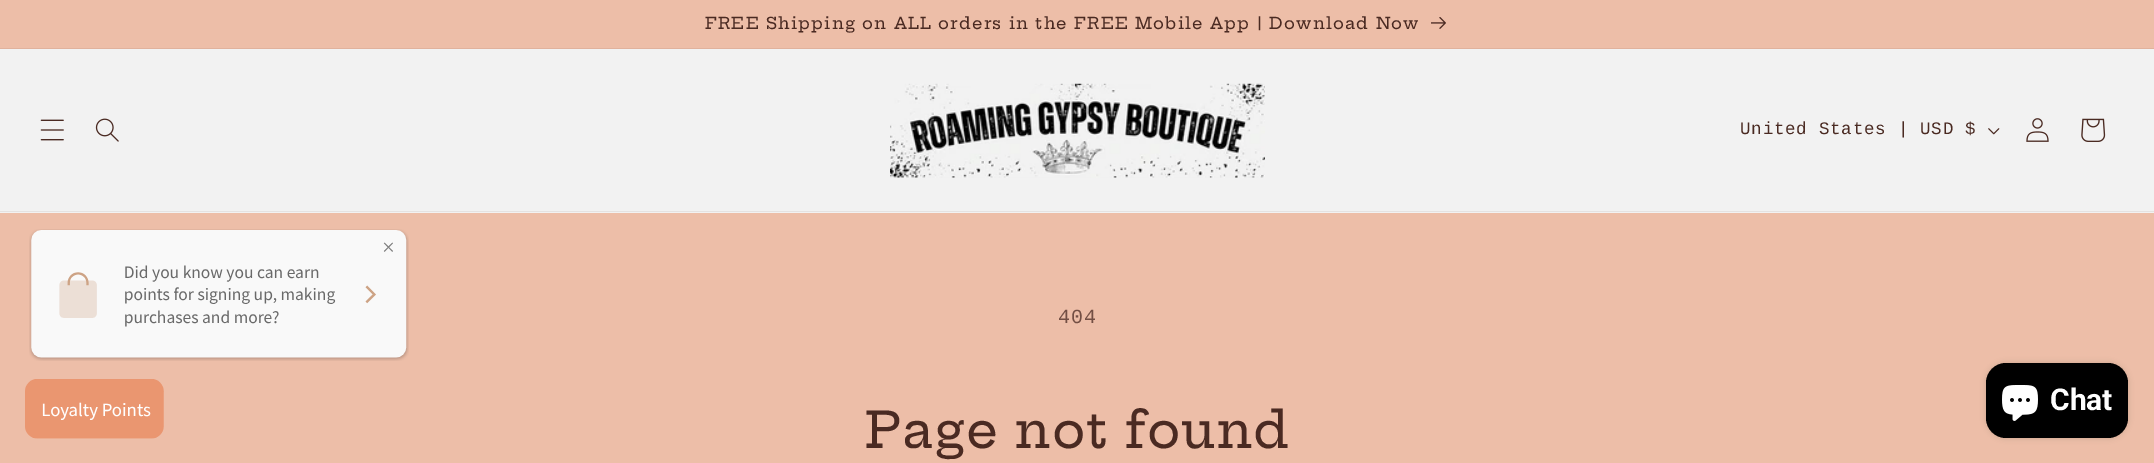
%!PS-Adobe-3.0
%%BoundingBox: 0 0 2154 463
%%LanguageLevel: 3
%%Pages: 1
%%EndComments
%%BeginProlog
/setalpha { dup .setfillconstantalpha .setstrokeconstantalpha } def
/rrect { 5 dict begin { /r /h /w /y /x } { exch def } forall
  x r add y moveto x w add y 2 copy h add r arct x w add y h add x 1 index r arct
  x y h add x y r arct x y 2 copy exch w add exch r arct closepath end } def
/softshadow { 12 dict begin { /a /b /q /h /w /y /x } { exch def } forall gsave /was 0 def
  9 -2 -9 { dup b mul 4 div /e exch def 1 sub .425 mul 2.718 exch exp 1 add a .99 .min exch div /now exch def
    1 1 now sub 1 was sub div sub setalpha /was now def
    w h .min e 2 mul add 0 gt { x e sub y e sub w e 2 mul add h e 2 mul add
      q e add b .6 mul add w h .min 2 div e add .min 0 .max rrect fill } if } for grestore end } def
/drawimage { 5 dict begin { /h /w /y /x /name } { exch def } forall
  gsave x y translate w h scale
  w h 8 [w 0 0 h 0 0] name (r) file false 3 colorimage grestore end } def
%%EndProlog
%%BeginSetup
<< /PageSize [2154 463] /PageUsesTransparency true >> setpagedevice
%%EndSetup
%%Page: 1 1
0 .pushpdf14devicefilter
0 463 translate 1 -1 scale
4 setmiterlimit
0.929 0.745 0.659 setrgbcolor
0 0 2154 463 rectfill
0.878 0.698 0.616 setrgbcolor
0 48 2154 1 rectfill
(images/1.raw) 1431 17 15 12 drawimage
0.949 setgray
0 49 2154 164 rectfill
0.898 0.886 0.882 setrgbcolor
0 211 2154 1 rectfill
(images/2.raw) 40 119 24 22 drawimage
(images/3.raw) 95 118 24 24 drawimage
(images/4.raw) 890 83 375 95 drawimage
(images/5.raw) 1988 128 12 7 drawimage
(images/6.raw) 2026 118 23 24 drawimage
(images/7.raw) 2081 118 25 24 drawimage
(images/8.raw) 29 229 380 132 drawimage
(images/9.raw) 25 379 139 60 drawimage
0 setgray
1986 363 142 75 20 3 0.15 softshadow
1986 363 142 75 20 rrect fill
(images/10.raw) 2002 385 36 36 drawimage
/HeptaSlab-Medium [16.25 0 0 -16.25 0 0] selectfont
0.29 0.165 0.133 setrgbcolor
705 29 moveto 1.25 0 (FREE Shipping on ALL orders in the FREE Mobile App | Download Now) ashow
/LiberationMono-Regular [17.5 0 0 -17.5 0 0] selectfont
1740 134 moveto 0.75 0 (United States | USD $) ashow
/LiberationMono-Regular [20 0 0 -20 0 0] selectfont
0.451 0.31 0.267 setrgbcolor
1058 323 moveto 0.75 0 (404) ashow
/HeptaSlab-Medium [50 0 0 -50 0 0] selectfont
0.29 0.165 0.133 setrgbcolor
865 448 moveto 0.75 0 (Page not found) ashow
/Roboto-Bold [30 0 0 -30 0 0] selectfont
1 setgray
2050 410 moveto (Chat) show
.poppdf14devicefilter showpage
%%EOF
